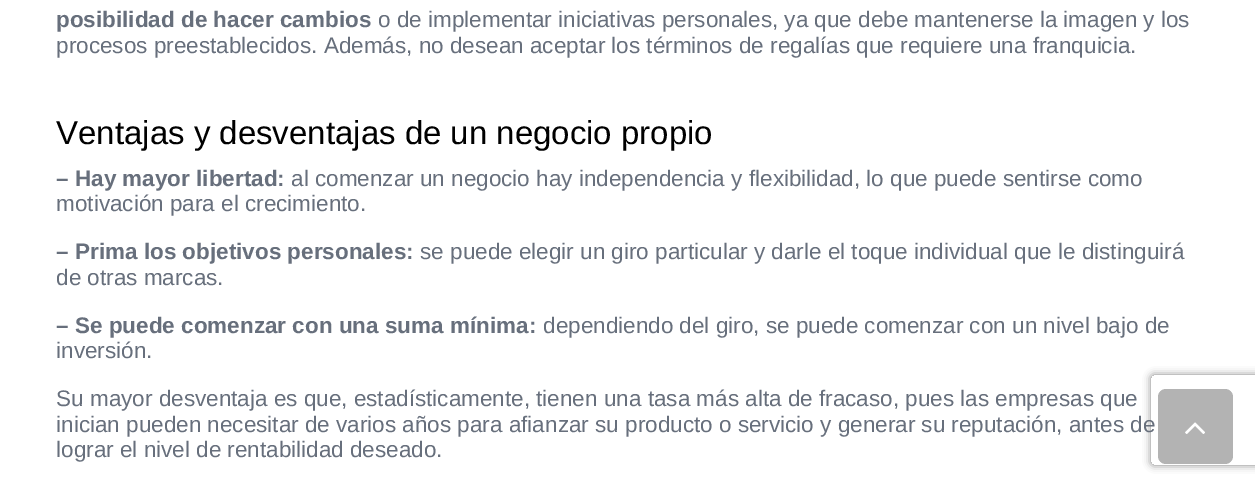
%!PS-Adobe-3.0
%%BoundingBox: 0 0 1255 485
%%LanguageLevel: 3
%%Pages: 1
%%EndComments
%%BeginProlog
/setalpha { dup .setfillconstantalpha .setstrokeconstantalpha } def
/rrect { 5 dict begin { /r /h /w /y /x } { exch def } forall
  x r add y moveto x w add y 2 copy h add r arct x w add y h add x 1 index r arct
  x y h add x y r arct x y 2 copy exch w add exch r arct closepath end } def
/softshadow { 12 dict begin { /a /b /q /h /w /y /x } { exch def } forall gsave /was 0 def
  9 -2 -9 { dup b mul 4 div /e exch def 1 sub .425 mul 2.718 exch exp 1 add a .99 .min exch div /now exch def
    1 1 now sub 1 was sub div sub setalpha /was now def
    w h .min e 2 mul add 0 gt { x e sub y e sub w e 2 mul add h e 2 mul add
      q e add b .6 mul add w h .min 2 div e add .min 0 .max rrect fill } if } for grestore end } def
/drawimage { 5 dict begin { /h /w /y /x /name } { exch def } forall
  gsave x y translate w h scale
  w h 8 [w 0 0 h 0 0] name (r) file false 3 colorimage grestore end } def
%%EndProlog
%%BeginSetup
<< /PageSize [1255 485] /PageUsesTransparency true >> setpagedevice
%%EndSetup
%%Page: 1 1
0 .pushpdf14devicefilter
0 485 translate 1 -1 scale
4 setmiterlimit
1 setgray
0 0 1255 485 rectfill
gsave
newpath 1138 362 moveto 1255 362 lineto 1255 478 lineto 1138 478 lineto closepath 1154 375 moveto 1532 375 lineto 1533.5 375 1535 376.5 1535 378 curveto 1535 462 lineto 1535 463.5 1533.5 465 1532 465 curveto 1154 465 lineto 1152.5 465 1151 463.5 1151 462 curveto 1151 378 lineto 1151 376.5 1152.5 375 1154 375 curveto closepath eoclip newpath
0.502 setgray
1151 375 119 90 3 4 1 softshadow
grestore
0.702 setgray
1158 389 75 75 8 rrect fill
(images/1.raw) 1185 422 20 12 drawimage
/LiberationSans-Bold [22.5 0 0 -22.5 0 0] selectfont
0.404 0.435 0.486 setrgbcolor
56 27 moveto (posibilidad de hacer cambios) show
/LiberationSans-Regular [22.5 0 0 -22.5 0 0] selectfont
378 27 moveto (o de implementar iniciativas personales, ya que debe mantenerse la imagen y los) show
56 53 moveto (procesos preestablecidos. Además, no desean aceptar los términos de regalías que requiere una franquicia.) show
/LiberationSans-Regular [33 0 0 -33 0 0] selectfont
0 setgray
56 144 moveto (Ventajas y desventajas de un negocio propio) show
/LiberationSans-Bold [22.5 0 0 -22.5 0 0] selectfont
0.404 0.435 0.486 setrgbcolor
56 186 moveto (– Hay mayor libertad:) show
/LiberationSans-Regular [22.5 0 0 -22.5 0 0] selectfont
291 186 moveto (al comenzar un negocio hay independencia y flexibilidad, lo que puede sentirse como) show
56 211 moveto (motivación para el crecimiento.) show
/LiberationSans-Bold [22.5 0 0 -22.5 0 0] selectfont
56 259 moveto (– Prima los objetivos personales:) show
/LiberationSans-Regular [22.5 0 0 -22.5 0 0] selectfont
420 259 moveto (se puede elegir un giro particular y darle el toque individual que le distinguirá) show
56 285 moveto (de otras marcas.) show
/LiberationSans-Bold [22.5 0 0 -22.5 0 0] selectfont
56 333 moveto (– Se puede comenzar con una suma mínima:) show
/LiberationSans-Regular [22.5 0 0 -22.5 0 0] selectfont
543 333 moveto (dependiendo del giro, se puede comenzar con un nivel bajo de) show
56 358 moveto (inversión.) show
56 406 moveto (Su mayor desventaja es que, estadísticamente, tienen una tasa más alta de fracaso, pues las empresas que) show
56 432 moveto (inician pueden necesitar de varios años para afianzar su producto o servicio y generar su reputación, antes de) show
56 457 moveto (lograr el nivel de rentabilidad deseado.) show
.poppdf14devicefilter showpage
%%EOF
